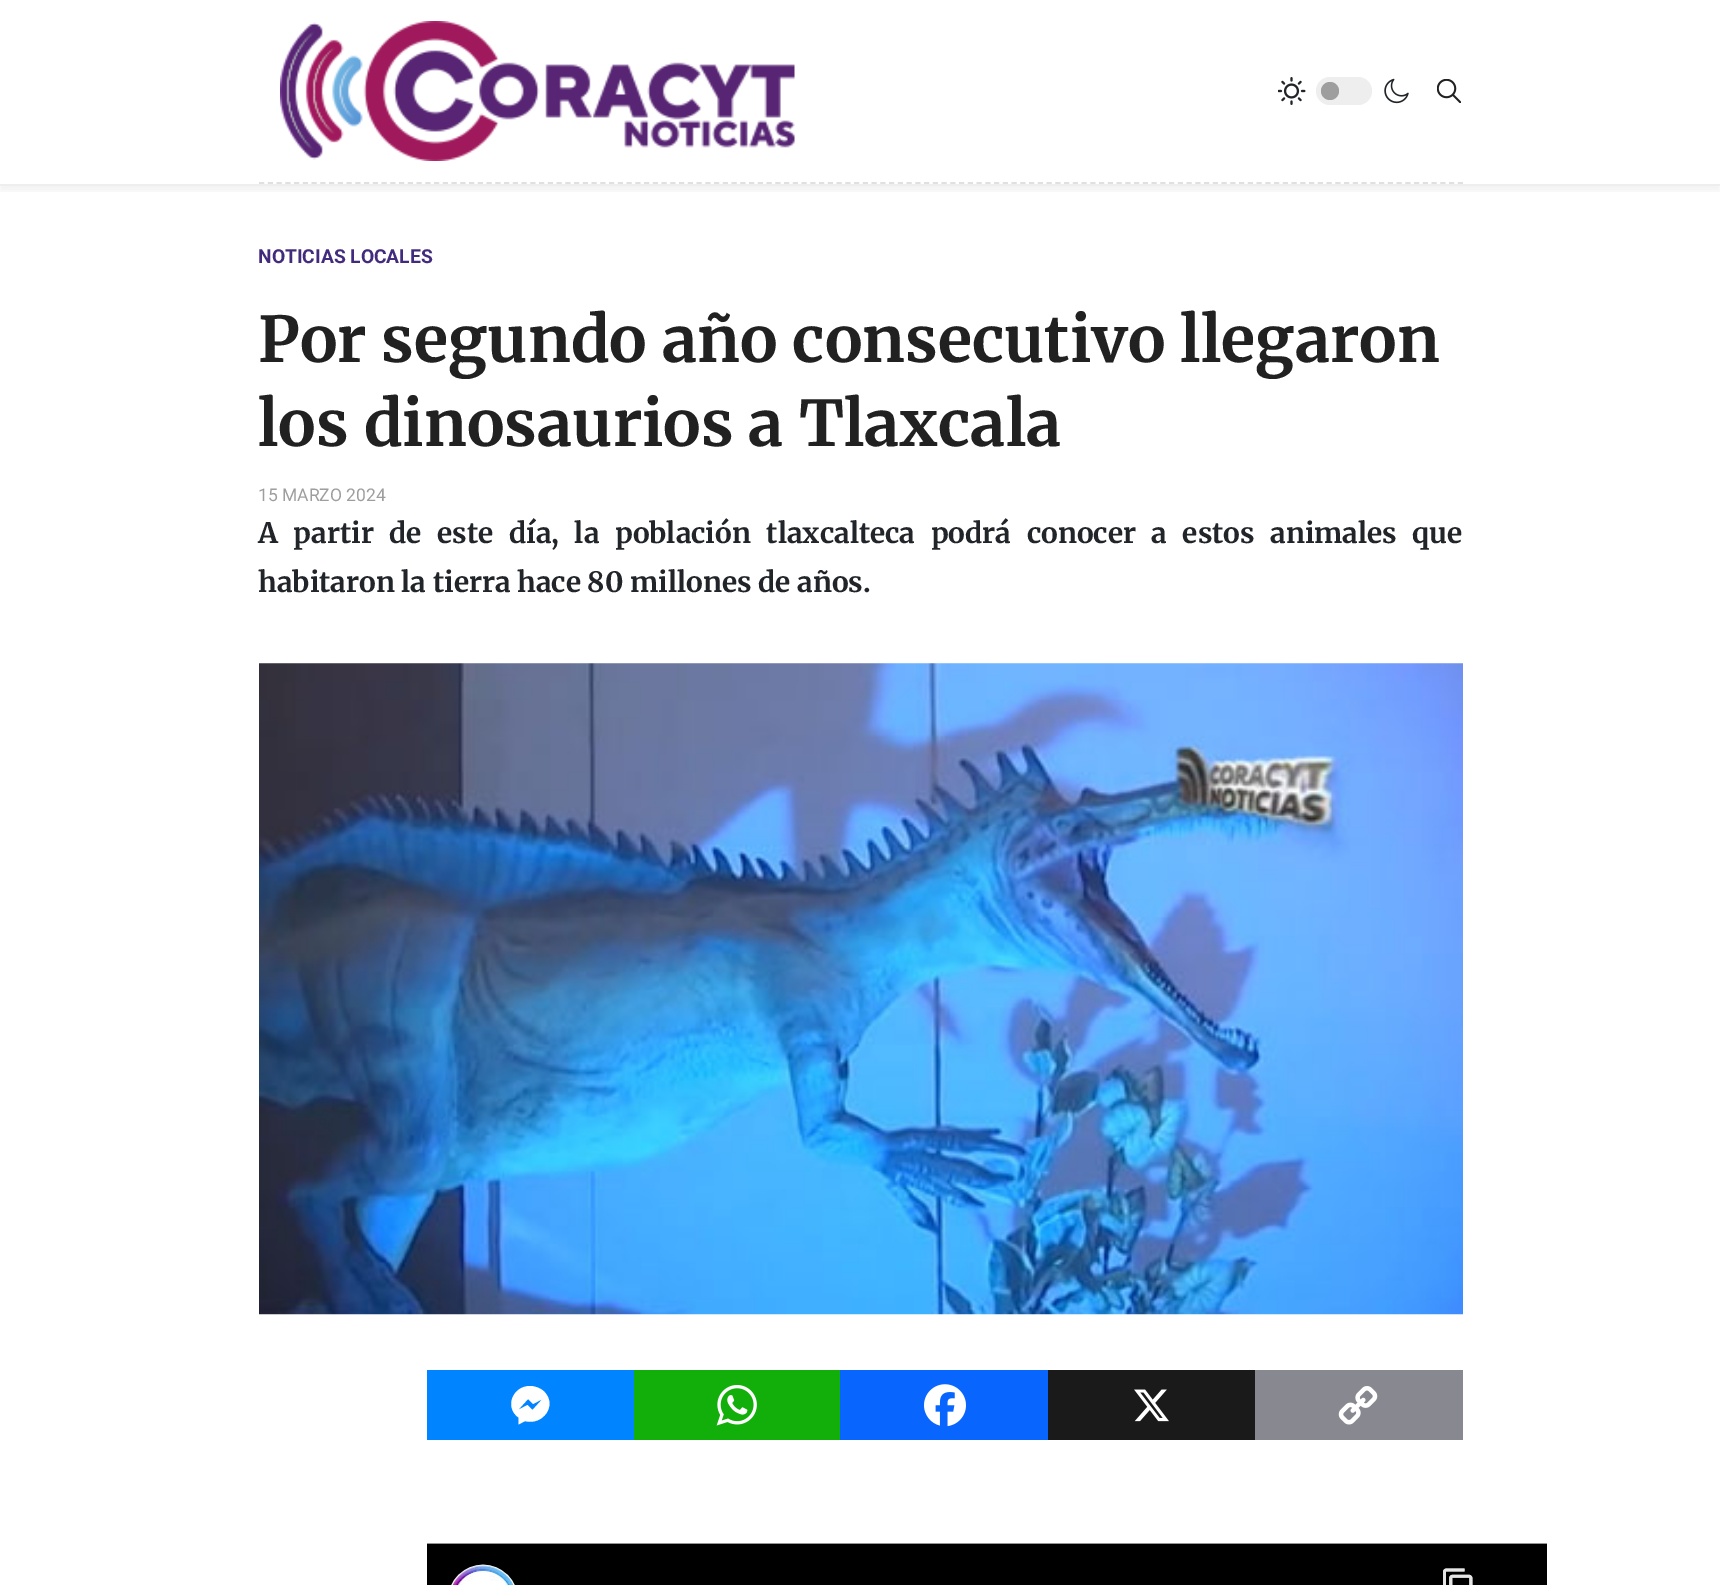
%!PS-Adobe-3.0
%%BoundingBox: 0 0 1720 1585
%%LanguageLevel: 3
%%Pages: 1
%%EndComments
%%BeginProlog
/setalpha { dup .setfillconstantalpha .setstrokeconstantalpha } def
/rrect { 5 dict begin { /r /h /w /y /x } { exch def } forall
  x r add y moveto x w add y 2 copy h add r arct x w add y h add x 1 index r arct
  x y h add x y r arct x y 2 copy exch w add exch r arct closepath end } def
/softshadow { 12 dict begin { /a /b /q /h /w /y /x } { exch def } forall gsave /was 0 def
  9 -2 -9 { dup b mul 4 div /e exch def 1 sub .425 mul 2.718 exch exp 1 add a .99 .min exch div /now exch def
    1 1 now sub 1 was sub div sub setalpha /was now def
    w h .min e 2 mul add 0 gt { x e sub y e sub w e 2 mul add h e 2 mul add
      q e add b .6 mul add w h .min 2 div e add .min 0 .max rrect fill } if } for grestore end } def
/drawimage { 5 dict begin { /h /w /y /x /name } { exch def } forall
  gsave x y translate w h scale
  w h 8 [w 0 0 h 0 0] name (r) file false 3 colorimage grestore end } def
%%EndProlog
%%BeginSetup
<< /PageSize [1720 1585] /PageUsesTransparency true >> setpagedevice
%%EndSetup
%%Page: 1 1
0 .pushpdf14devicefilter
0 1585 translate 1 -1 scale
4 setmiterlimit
1 setgray
0 0 1720 1585 rectfill
gsave
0 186 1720 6 rectclip
0 setgray
0 5 1720 186 0 4.5 0.05 softshadow
grestore
0.933 setgray
0 184 1720 2 rectfill
0.878 setgray
1.8 setlinewidth
[5.25 3.5] 0 setdash
newpath 259 183 moveto 1463 183 lineto stroke
(images/1.raw) 280 21 515 140 drawimage
(images/2.raw) 1278 77 28 28 drawimage
0.933 setgray
1316 77 56 28 14 rrect fill
0.62 setgray
newpath 1330 91 9 0 360 arc closepath fill
(images/3.raw) 1384 78 25 26 drawimage
(images/4.raw) 1437 79 24 24 drawimage
(images/5.raw) 259 663 1204 652 drawimage
0 0.518 1 setrgbcolor
427 1370 207 70 rectfill
1 setgray
newpath 530 1386 moveto 513 1386 504 1407 518.5 1417.5 curveto 518.5 1424.5 lineto 525 1421 lineto 542.5 1426 558.5 1405 543.5 1391 curveto 540 1388 535 1386 530 1386 curveto 532.5 1410 moveto 527.5 1405 lineto 518 1410 lineto 528 1399 lineto 533 1404 lineto 542.5 1399 lineto closepath fill
0.071 0.686 0.039 setrgbcolor
634 1370 206 70 rectfill
(images/6.raw) 716 1385 41 41 drawimage
0.031 0.4 1 setrgbcolor
840 1370 208 70 rectfill
(images/7.raw) 924 1384 42 43 drawimage
0.102 setgray
1048 1370 207 70 rectfill
(images/8.raw) 1134 1389 35 33 drawimage
0.533 0.537 0.565 setrgbcolor
1255 1370 208 70 rectfill
(images/9.raw) 1338 1386 40 39 drawimage
(images/10.raw) 427 1543 1120 42 drawimage
/Roboto-Bold [19.25 0 0 -19.25 0 0] selectfont
0.259 0.169 0.486 setrgbcolor
258 263 moveto (NOTICIAS LOCALES) show
/Merriweather-Bold [63 0 0 -63 0 0] selectfont
0.129 setgray
258 362 moveto (Por segundo año consecutivo llegaron) show
258 446 moveto (los dinosaurios a Tlaxcala) show
/Roboto-Regular [17.5 0 0 -17.5 0 0] selectfont
0.62 setgray
258 501 moveto (15 MARZO 2024) show
/Merriweather-Bold [28 0 0 -28 0 0] selectfont
0.129 0.145 0.161 setrgbcolor
258 543 moveto 8.9 0 32 (A partir de este día, la población tlaxcalteca podrá conocer a estos animales que) widthshow
258 592 moveto (habitaron la tierra hace 80 millones de años.) show
.poppdf14devicefilter showpage
%%EOF
